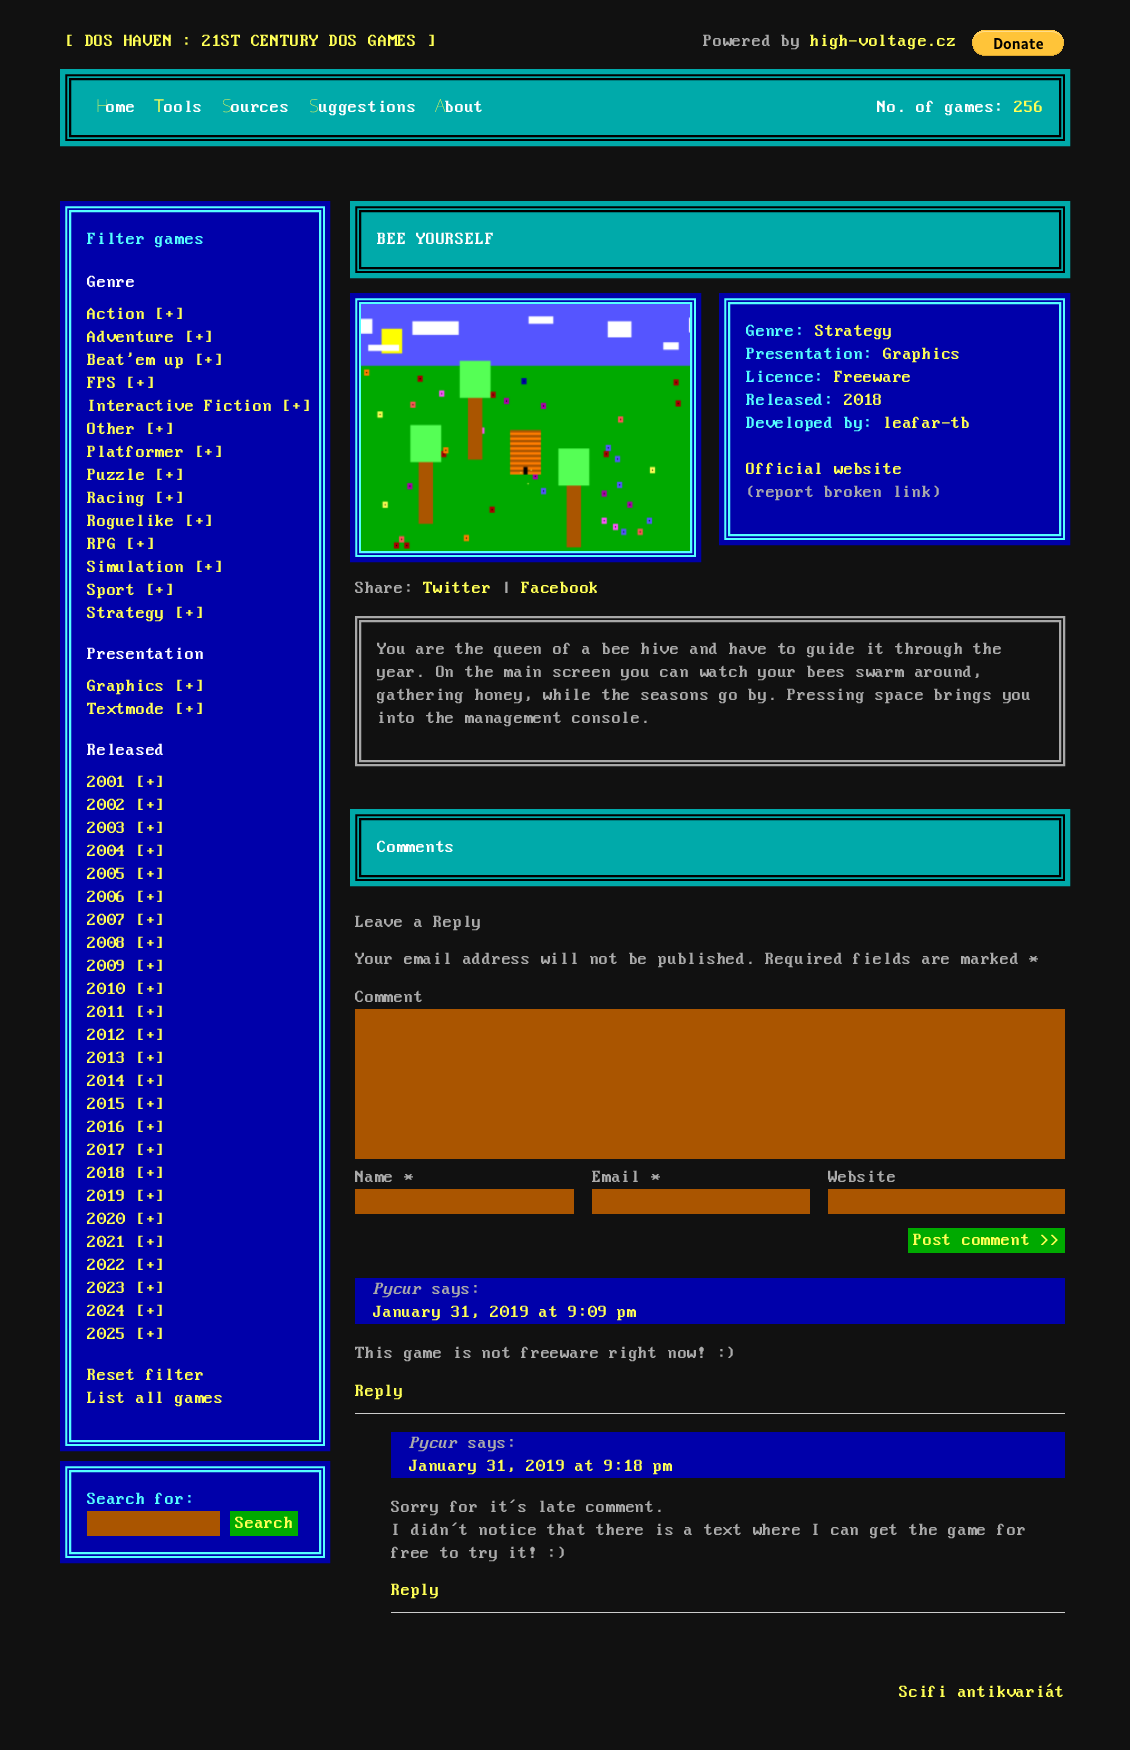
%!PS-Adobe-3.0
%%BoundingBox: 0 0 1130 1750
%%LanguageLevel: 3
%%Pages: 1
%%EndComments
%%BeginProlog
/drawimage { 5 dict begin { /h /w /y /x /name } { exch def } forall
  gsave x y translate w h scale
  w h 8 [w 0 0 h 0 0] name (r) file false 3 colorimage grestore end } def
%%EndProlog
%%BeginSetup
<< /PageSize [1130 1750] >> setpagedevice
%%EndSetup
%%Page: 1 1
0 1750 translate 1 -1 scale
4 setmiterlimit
0.067 setgray
0 0 1130 1750 rectfill
(images/1.raw) 972 30 92 26 drawimage
0 0.667 0.667 setrgbcolor
newpath 66 75 moveto 1064 75 lineto 1064 140 lineto 66 140 lineto closepath gsave fill grestore
0 setgray
2 setlinewidth
stroke
70 79 990 57 rectstroke
0 0.667 0.667 setrgbcolor
5 setlinewidth
62.5 71.5 1005 72 rectstroke
0 0 0.667 setrgbcolor
newpath 66 207 moveto 324 207 lineto 324 1445 lineto 66 1445 lineto closepath gsave fill grestore
0.333 1 1 setrgbcolor
2 setlinewidth
stroke
70 211 250 1230 rectstroke
0 0 0.667 setrgbcolor
5 setlinewidth
62.5 203.5 265 1245 rectstroke
newpath 66 1467 moveto 324 1467 lineto 324 1557 lineto 66 1557 lineto closepath gsave fill grestore
0.333 1 1 setrgbcolor
2 setlinewidth
stroke
70 1471 250 82 rectstroke
0.667 0.333 0 setrgbcolor
87 1511 133 25 rectfill
0 0 0.667 setrgbcolor
5 setlinewidth
62.5 1463.5 265 97 rectstroke
0 0.667 0 setrgbcolor
230 1511 68 25 rectfill
0 0.667 0.667 setrgbcolor
newpath 356 207 moveto 1064 207 lineto 1064 272 lineto 356 272 lineto closepath gsave fill grestore
0 setgray
2 setlinewidth
stroke
360 211 700 57 rectstroke
0 0.667 0.667 setrgbcolor
5 setlinewidth
352.5 203.5 715 72 rectstroke
0 0 0.667 setrgbcolor
newpath 725 299 moveto 1064 299 lineto 1064 539 lineto 725 539 lineto closepath gsave fill grestore
0.333 1 1 setrgbcolor
2 setlinewidth
stroke
729 303 331 232 rectstroke
0 0 0.667 setrgbcolor
5 setlinewidth
721.5 295.5 346 247 rectstroke
newpath 356 299 moveto 695 299 lineto 695 556 lineto 356 556 lineto closepath gsave fill grestore
0.333 1 1 setrgbcolor
2 setlinewidth
stroke
360 303 331 249 rectstroke
(images/2.raw) 361 304 329 247 drawimage
0 0 0.667 setrgbcolor
5 setlinewidth
352.5 295.5 346 264 rectstroke
0.659 setgray
2 setlinewidth
356 617 708 148 rectstroke
360 621 700 140 rectstroke
0 0.667 0.667 setrgbcolor
newpath 356 815 moveto 1064 815 lineto 1064 880 lineto 356 880 lineto closepath gsave fill grestore
0 setgray
stroke
360 819 700 57 rectstroke
0 0.667 0.667 setrgbcolor
5 setlinewidth
352.5 811.5 715 72 rectstroke
0.667 0.333 0 setrgbcolor
355 1009 710 150 rectfill
355 1189 219 25 rectfill
592 1189 218 25 rectfill
828 1189 237 25 rectfill
0 0.667 0 setrgbcolor
908 1228 157 25 rectfill
0.8 setgray
355 1413 710 1 rectfill
0 0 0.667 setrgbcolor
355 1278 710 46 rectfill
0.8 setgray
391 1612 674 1 rectfill
0 0 0.667 setrgbcolor
391 1432 674 46 rectfill
/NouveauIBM-Medium [18 0 0 -18 0 0] selectfont
1 1 0.333 setrgbcolor
65 46 moveto ([ DOS HAVEN : 21ST CENTURY DOS GAMES ]) show
0.667 setgray
703 46 moveto (Powered by) show
1 1 0.333 setrgbcolor
810 46 moveto (high-voltage.cz) show
/NotoSans-Thin [18 0 0 -18 0 0] selectfont
96 112 moveto (H) show
/NouveauIBM-Medium [18 0 0 -18 0 0] selectfont
1 setgray
106 112 moveto (ome) show
/NotoSans-Regular [18 0 0 -18 0 0] selectfont
1 1 0.333 setrgbcolor
154 112 moveto (T) show
/NouveauIBM-Medium [18 0 0 -18 0 0] selectfont
1 setgray
164 112 moveto (ools) show
/NotoSans-Thin [18 0 0 -18 0 0] selectfont
1 1 0.333 setrgbcolor
222 112 moveto (S) show
/NouveauIBM-Medium [18 0 0 -18 0 0] selectfont
1 setgray
231 112 moveto (ources) show
/NotoSans-Thin [18 0 0 -18 0 0] selectfont
1 1 0.333 setrgbcolor
309 112 moveto (S) show
/NouveauIBM-Medium [18 0 0 -18 0 0] selectfont
1 setgray
319 112 moveto (uggestions) show
/NotoSans-Thin [18 0 0 -18 0 0] selectfont
1 1 0.333 setrgbcolor
435 112 moveto (A) show
/NouveauIBM-Medium [18 0 0 -18 0 0] selectfont
1 setgray
445 112 moveto (bout) show
877 112 moveto (No. of games:) show
1 1 0.333 setrgbcolor
1014 112 moveto (256) show
0.333 1 1 setrgbcolor
87 244 moveto (Filter games) show
1 setgray
87 287 moveto (Genre) show
1 1 0.333 setrgbcolor
87 319 moveto (Action [+]) show
87 342 moveto (Adventure [+]) show
87 365 moveto (Beat'em up [+]) show
87 388 moveto (FPS [+]) show
87 411 moveto (Interactive Fiction [+]) show
87 434 moveto (Other [+]) show
87 457 moveto (Platformer [+]) show
87 480 moveto (Puzzle [+]) show
87 503 moveto (Racing [+]) show
87 526 moveto (Roguelike [+]) show
87 549 moveto (RPG [+]) show
87 572 moveto (Simulation [+]) show
87 595 moveto (Sport [+]) show
87 618 moveto (Strategy [+]) show
1 setgray
87 659 moveto (Presentation) show
1 1 0.333 setrgbcolor
87 691 moveto (Graphics [+]) show
87 714 moveto (Textmode [+]) show
1 setgray
87 755 moveto (Released) show
1 1 0.333 setrgbcolor
87 787 moveto (2001 [+]) show
87 810 moveto (2002 [+]) show
87 833 moveto (2003 [+]) show
87 856 moveto (2004 [+]) show
87 879 moveto (2005 [+]) show
87 902 moveto (2006 [+]) show
87 925 moveto (2007 [+]) show
87 948 moveto (2008 [+]) show
87 971 moveto (2009 [+]) show
87 994 moveto (2010 [+]) show
87 1017 moveto (2011 [+]) show
87 1040 moveto (2012 [+]) show
87 1063 moveto (2013 [+]) show
87 1086 moveto (2014 [+]) show
87 1109 moveto (2015 [+]) show
87 1132 moveto (2016 [+]) show
87 1155 moveto (2017 [+]) show
87 1178 moveto (2018 [+]) show
87 1201 moveto (2019 [+]) show
87 1224 moveto (2020 [+]) show
87 1247 moveto (2021 [+]) show
87 1270 moveto (2022 [+]) show
87 1293 moveto (2023 [+]) show
87 1316 moveto (2024 [+]) show
87 1339 moveto (2025 [+]) show
87 1380 moveto (Reset filter) show
87 1403 moveto (List all games) show
0.333 1 1 setrgbcolor
87 1504 moveto (Search for:) show
1 1 0.333 setrgbcolor
235 1528 moveto (Search) show
1 setgray
377 244 moveto (BEE YOURSELF) show
0.333 1 1 setrgbcolor
746 336 moveto (Genre:) show
1 1 0.333 setrgbcolor
815 336 moveto (Strategy) show
0.333 1 1 setrgbcolor
746 359 moveto (Presentation:) show
1 1 0.333 setrgbcolor
883 359 moveto (Graphics) show
0.333 1 1 setrgbcolor
746 382 moveto (Licence:) show
1 1 0.333 setrgbcolor
834 382 moveto (Freeware) show
0.333 1 1 setrgbcolor
746 405 moveto (Released:) show
1 1 0.333 setrgbcolor
844 405 moveto (2018) show
0.333 1 1 setrgbcolor
746 428 moveto (Developed by:) show
1 1 0.333 setrgbcolor
883 428 moveto (leafar-tb) show
746 474 moveto (Official website) show
0.667 setgray
746 497 moveto (\(report broken link\)) show
355 593 moveto (Share:) show
1 1 0.333 setrgbcolor
423 593 moveto (Twitter) show
0.667 setgray
502 593 moveto (|) show
1 1 0.333 setrgbcolor
521 593 moveto (Facebook) show
0.667 setgray
377 654 moveto (You are the queen of a bee hive and have to guide it through the) show
377 677 moveto (year. On the main screen you can watch your bees swarm around,) show
377 700 moveto (gathering honey, while the seasons go by. Pressing space brings you) show
377 723 moveto (into the management console.) show
1 setgray
377 852 moveto (Comments) show
0.667 setgray
355 927 moveto (Leave a Reply) show
355 964 moveto (Your email address will not be published. Required fields are marked *) show
355 1002 moveto (Comment) show
355 1182 moveto (Name *) show
592 1182 moveto (Email *) show
828 1182 moveto (Website) show
1 1 0.333 setrgbcolor
913 1245 moveto (Post comment >>) show
/NouveauIBM-MediumItalic [18 0 0 -18 0 0] selectfont
0.667 setgray
373 1294 moveto (Pycur) show
/NouveauIBM-Medium [18 0 0 -18 0 0] selectfont
432 1294 moveto (says:) show
1 1 0.333 setrgbcolor
373 1317 moveto (January 31, 2019 at 9:09 pm) show
0.667 setgray
355 1358 moveto (This game is not freeware right now! :\)) show
1 1 0.333 setrgbcolor
355 1396 moveto (Reply) show
/NouveauIBM-MediumItalic [18 0 0 -18 0 0] selectfont
0.667 setgray
409 1448 moveto (Pycur) show
/NouveauIBM-Medium [18 0 0 -18 0 0] selectfont
468 1448 moveto (says:) show
1 1 0.333 setrgbcolor
409 1471 moveto (January 31, 2019 at 9:18 pm) show
0.667 setgray
391 1512 moveto (Sorry for it’s late comment.) show
391 1535 moveto (I didn’t notice that there is a text where I can get the game for) show
391 1558 moveto (free to try it! :\)) show
1 1 0.333 setrgbcolor
391 1595 moveto (Reply) show
899 1697 moveto (Scifi antikvariát) show
showpage
%%EOF
